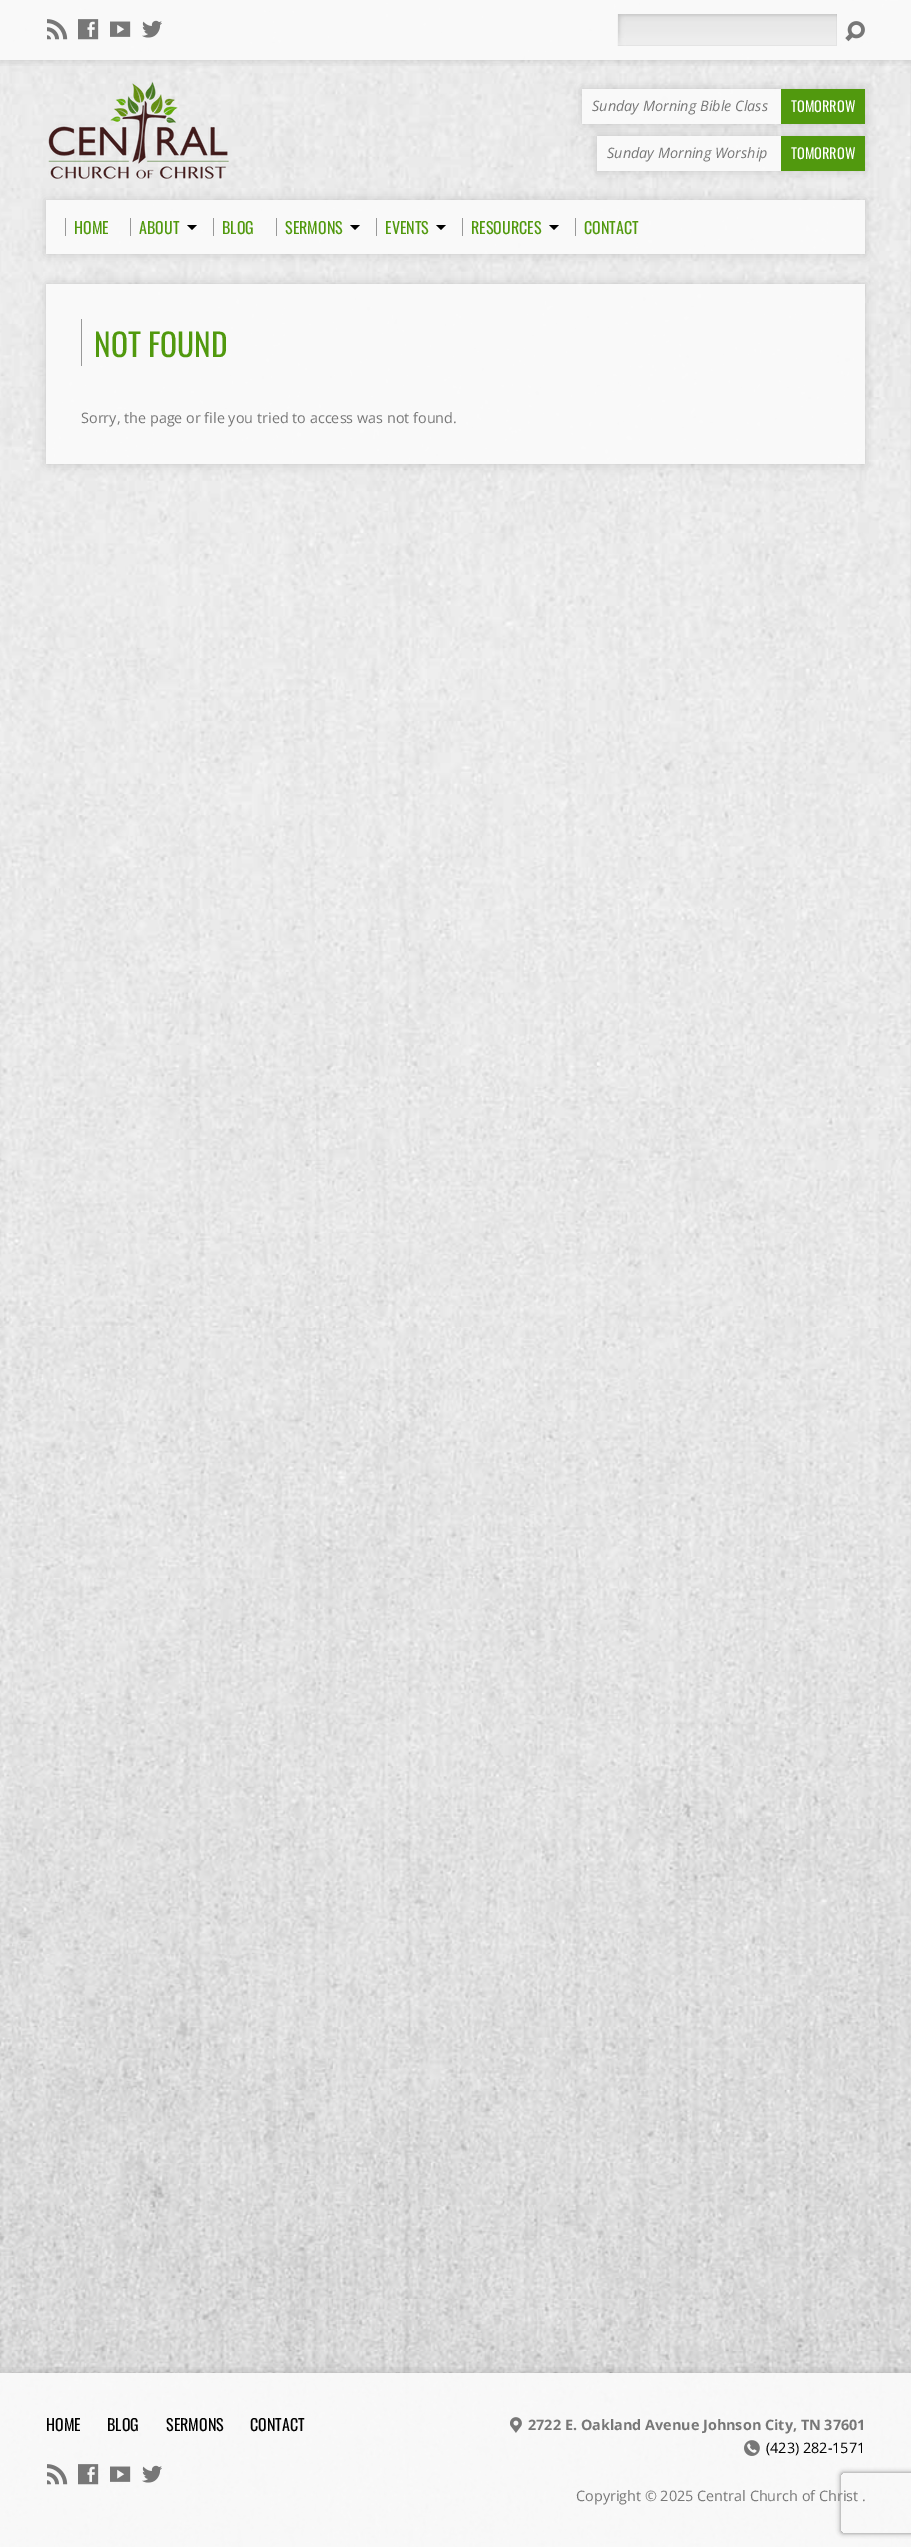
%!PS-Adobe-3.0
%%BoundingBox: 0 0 911 2547
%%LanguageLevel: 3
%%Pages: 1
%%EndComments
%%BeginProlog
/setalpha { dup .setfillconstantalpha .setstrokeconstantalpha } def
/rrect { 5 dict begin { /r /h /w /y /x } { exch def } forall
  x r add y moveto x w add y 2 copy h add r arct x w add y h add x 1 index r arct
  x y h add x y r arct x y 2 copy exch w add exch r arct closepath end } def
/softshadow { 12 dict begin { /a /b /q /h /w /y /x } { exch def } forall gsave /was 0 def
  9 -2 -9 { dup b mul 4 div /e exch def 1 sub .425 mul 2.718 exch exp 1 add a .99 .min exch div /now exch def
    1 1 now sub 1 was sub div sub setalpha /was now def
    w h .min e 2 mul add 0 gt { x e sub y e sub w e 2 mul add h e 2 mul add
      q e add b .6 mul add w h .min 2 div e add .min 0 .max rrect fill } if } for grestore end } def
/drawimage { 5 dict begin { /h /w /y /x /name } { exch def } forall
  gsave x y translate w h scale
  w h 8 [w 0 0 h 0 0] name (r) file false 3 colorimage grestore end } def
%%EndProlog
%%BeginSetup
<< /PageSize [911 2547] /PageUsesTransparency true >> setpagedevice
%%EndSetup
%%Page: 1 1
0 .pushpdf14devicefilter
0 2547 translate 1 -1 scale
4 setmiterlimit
1 setgray
0 0 911 2547 rectfill
(images/1.raw) 0 0 911 2547 drawimage
gsave
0 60 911 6 rectclip
0 setgray
0 0 911 60 0 5 0.15 softshadow
grestore
0.94 setalpha
0.98 setgray
0 0 911 60 rectfill
1 setalpha
(images/2.raw) 47 19 21 21 drawimage
(images/3.raw) 78 19 21 21 drawimage
(images/4.raw) 110 21 21 16 drawimage
(images/5.raw) 142 20 20 18 drawimage
1 setgray
617 14 1 32 rectfill
(images/6.raw) 618 14 219 32 drawimage
0.1 setalpha
0.588 setgray
newpath 837 14 moveto 837 46 lineto 836 45 lineto 836 14 lineto closepath fill
newpath 837 46 moveto 617 46 lineto 618 45 lineto 836 45 lineto closepath fill
newpath 617 46 moveto 617 14 lineto 618 14 lineto 618 45 lineto closepath fill
1 setalpha
(images/7.raw) 845 21 20 21 drawimage
(images/8.raw) 48 81 181 98 drawimage
gsave
newpath 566 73 moveto 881 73 lineto 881 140 lineto 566 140 lineto closepath 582 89 moveto 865 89 lineto 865 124 lineto 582 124 lineto closepath eoclip newpath
0 setgray
582 89 283 35 0 5 0.15 softshadow
grestore
0.94 setalpha
0.98 setgray
582 89 199 35 rectfill
1 setalpha
0.318 0.6 0.055 setrgbcolor
781 89 84 35 rectfill
gsave
newpath 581 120 moveto 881 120 lineto 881 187 lineto 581 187 lineto closepath 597 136 moveto 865 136 lineto 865 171 lineto 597 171 lineto closepath eoclip newpath
0 setgray
597 136 268 35 0 5 0.15 softshadow
grestore
0.94 setalpha
0.98 setgray
597 136 184 35 rectfill
1 setalpha
0.318 0.6 0.055 setrgbcolor
781 136 84 35 rectfill
gsave
newpath 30 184 moveto 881 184 lineto 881 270 lineto 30 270 lineto closepath 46 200 moveto 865 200 lineto 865 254 lineto 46 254 lineto closepath eoclip newpath
0 setgray
46 200 819 54 0 5 0.15 softshadow
grestore
0.94 setalpha
0.98 setgray
46 200 819 54 rectfill
1 setalpha
0.6 setgray
65 218 1 18 rectfill
130 218 1 18 rectfill
0 setgray
newpath 187 225 moveto 197 225 lineto 192 230 lineto closepath fill
0.6 setgray
213 218 1 18 rectfill
276 218 1 18 rectfill
0 setgray
newpath 350 225 moveto 360 225 lineto 355 230 lineto closepath fill
0.6 setgray
376 218 1 18 rectfill
0 setgray
newpath 436 225 moveto 446 225 lineto 441 230 lineto closepath fill
0.6 setgray
462 218 1 18 rectfill
0 setgray
newpath 549 225 moveto 559 225 lineto 554 230 lineto closepath fill
0.6 setgray
575 218 1 18 rectfill
gsave
newpath 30 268 moveto 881 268 lineto 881 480 lineto 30 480 lineto closepath 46 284 moveto 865 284 lineto 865 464 lineto 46 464 lineto closepath eoclip newpath
0 setgray
46 284 819 180 0 5 0.15 softshadow
grestore
0.94 setalpha
0.98 setgray
46 284 819 180 rectfill
1 setalpha
0.6 setgray
81 319 1 47 rectfill
gsave
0 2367 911 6 rectclip
0 setgray
0 2373 911 174 0 5 0.15 softshadow
grestore
0.94 setalpha
0.98 setgray
0 2373 911 174 rectfill
1 setalpha
(images/9.raw) 47 2464 21 21 drawimage
(images/10.raw) 78 2464 21 21 drawimage
(images/11.raw) 110 2466 21 16 drawimage
(images/12.raw) 142 2465 20 18 drawimage
(images/13.raw) 510 2417 12 16 drawimage
(images/14.raw) 744 2440 16 16 drawimage
gsave
newpath 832 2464 moveto 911 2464 lineto 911 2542 lineto 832 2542 lineto closepath 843 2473 moveto 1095 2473 lineto 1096 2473 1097 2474 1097 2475 curveto 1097 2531 lineto 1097 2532 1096 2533 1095 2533 curveto 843 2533 lineto 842 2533 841 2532 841 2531 curveto 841 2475 lineto 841 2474 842 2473 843 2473 curveto closepath eoclip newpath
0.502 setgray
841 2473 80 60 2 2.5 1 softshadow
grestore
/OpenSans-Italic [14.4 0 0 -14.4 0 0] selectfont
0.467 setgray
592 111 moveto (Sunday Morning Bible Class) show
/Oswald-Regular [14.4 0 0 -14.4 0 0] selectfont
1 setgray
791 112 moveto (TOMORROW) show
/OpenSans-Italic [14.4 0 0 -14.4 0 0] selectfont
0.467 setgray
607 158 moveto (Sunday Morning Worship) show
/Oswald-Regular [14.4 0 0 -14.4 0 0] selectfont
1 setgray
791 159 moveto (TOMORROW) show
/Oswald-Regular [16 0 0 -16 0 0] selectfont
0.318 0.6 0.055 setrgbcolor
74 234 moveto (HOME) show
139 234 moveto (ABOUT) show
222 234 moveto (BLOG) show
285 234 moveto (SERMONS) show
385 234 moveto (EVENTS) show
471 234 moveto (RESOURCES) show
584 234 moveto (CONTACT) show
/Oswald-Regular [31.5 0 0 -31.5 0 0] selectfont
94 357 moveto (NOT FOUND) show
/OpenSans-Regular [14.4 0 0 -14.4 0 0] selectfont
0.467 setgray
81 423 moveto (Sorry, the page or file you tried to access was not found.) show
/Oswald-Regular [16 0 0 -16 0 0] selectfont
0 setgray
46 2431 moveto (HOME) show
107 2431 moveto (BLOG) show
166 2431 moveto (SERMONS) show
250 2431 moveto (CONTACT) show
/OpenSans-Bold [14.4 0 0 -14.4 0 0] selectfont
0.467 setgray
528 2430 moveto (2722 E. Oakland Avenue Johnson City, TN 37601) show
/OpenSans-Regular [14.4 0 0 -14.4 0 0] selectfont
0 setgray
766 2453 moveto (\(423\) 282-1571) show
0.467 setgray
576 2501 moveto (Copyright © 2025 Central Church of Christ .) show
.poppdf14devicefilter showpage
%%EOF
